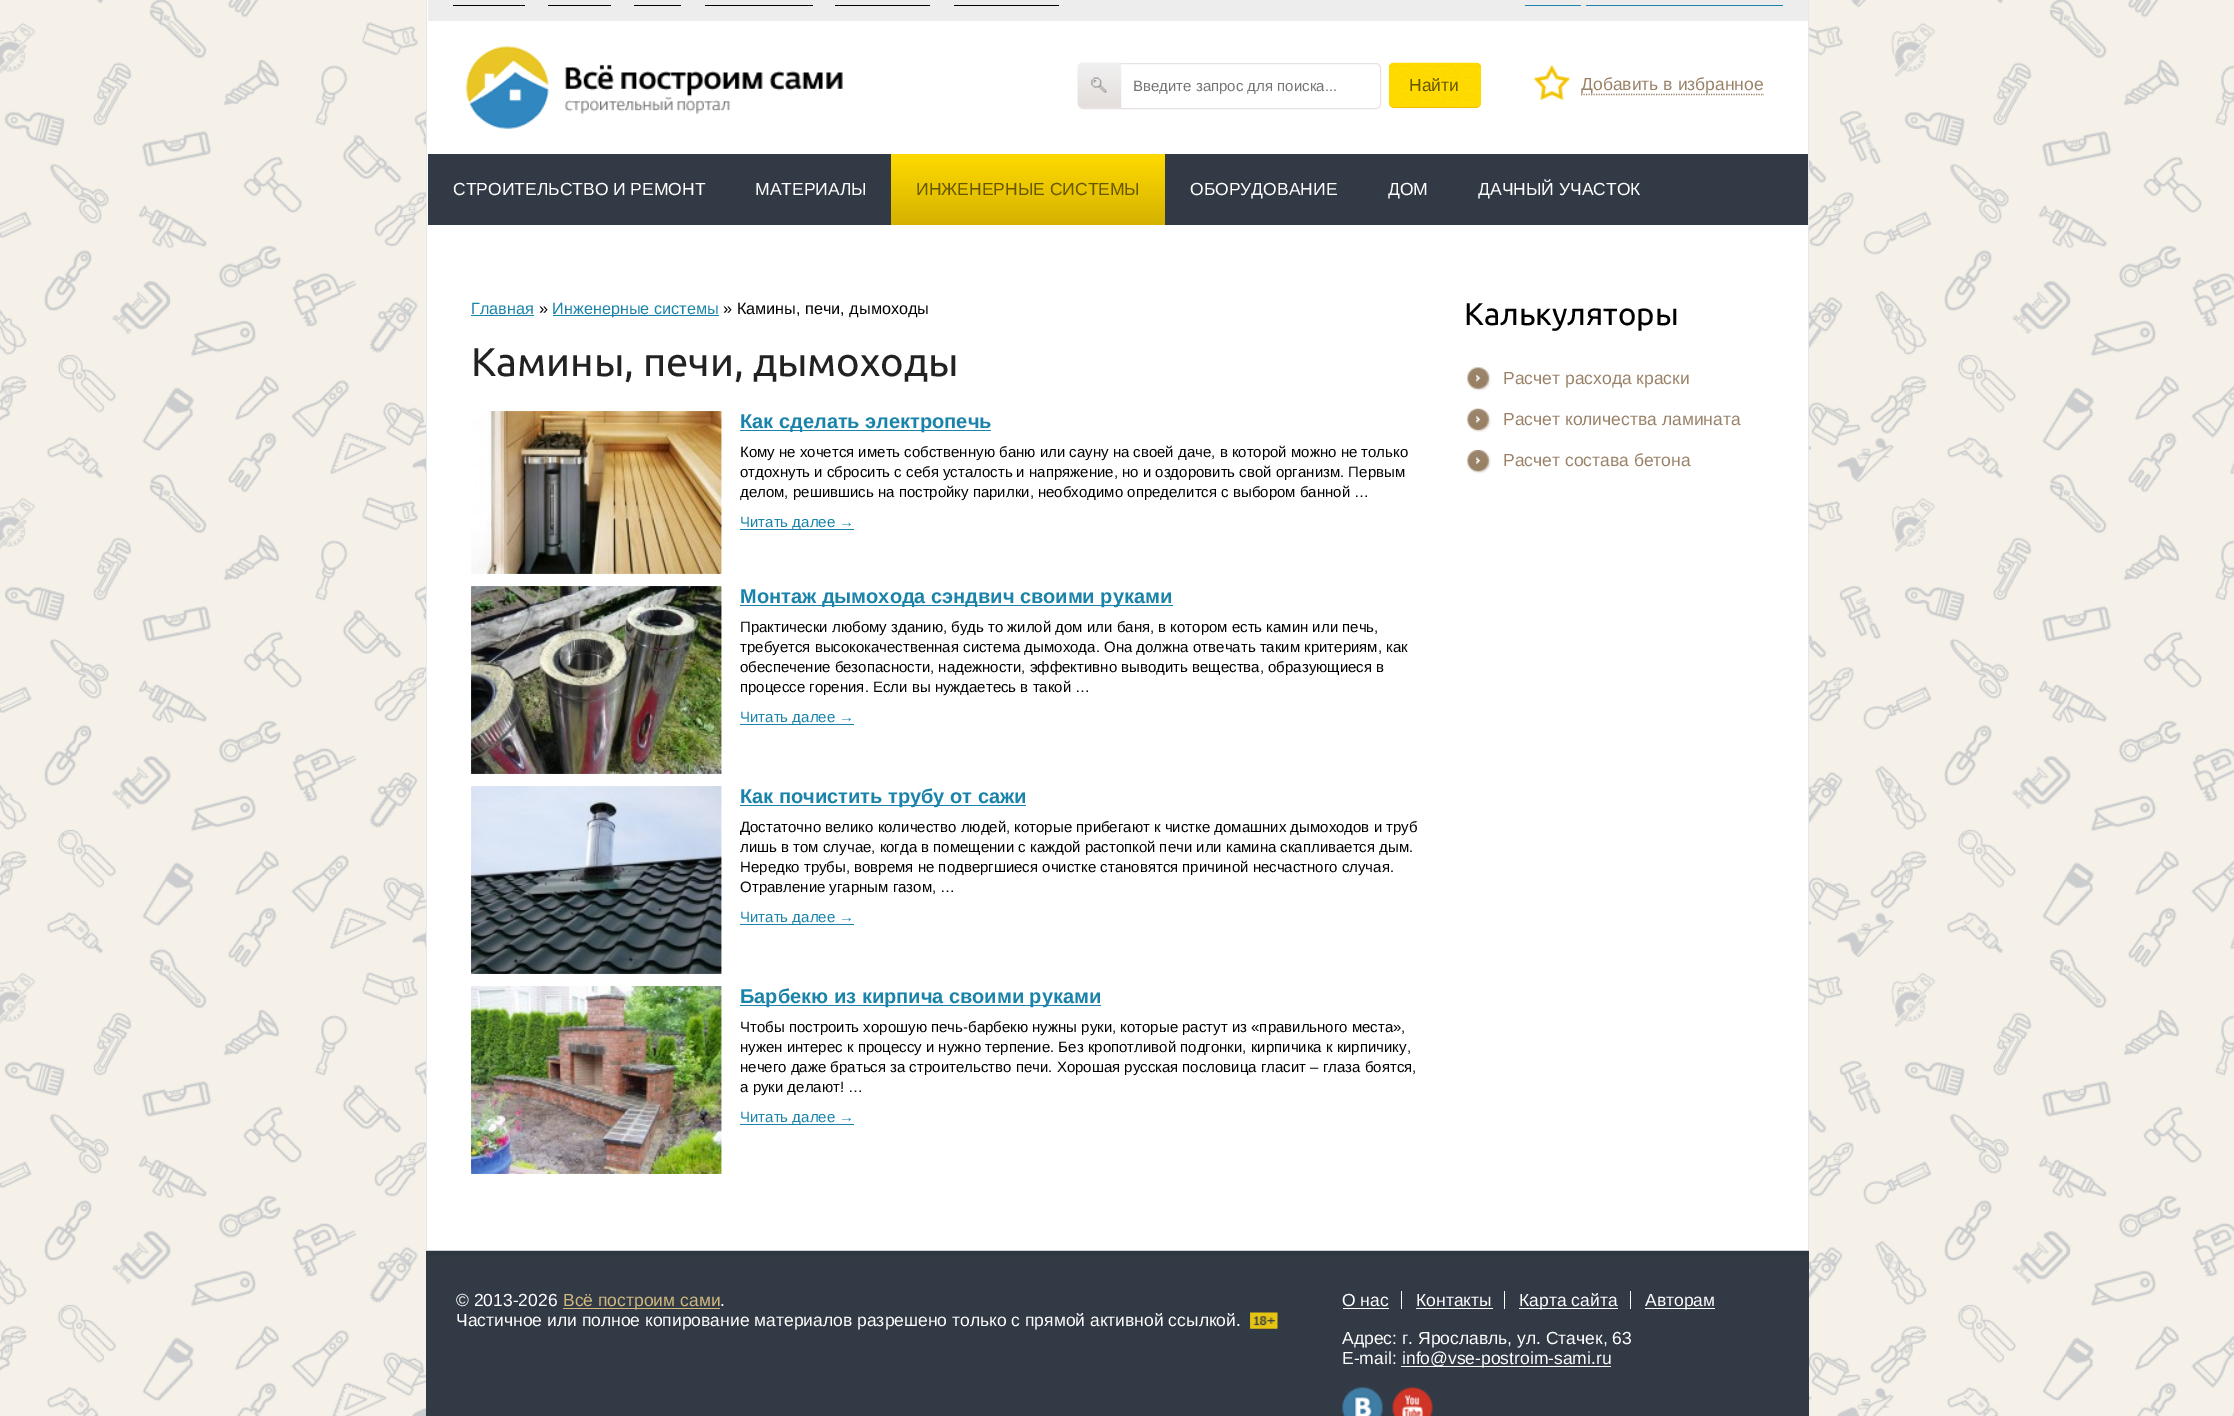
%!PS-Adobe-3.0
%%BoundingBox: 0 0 2234 1416
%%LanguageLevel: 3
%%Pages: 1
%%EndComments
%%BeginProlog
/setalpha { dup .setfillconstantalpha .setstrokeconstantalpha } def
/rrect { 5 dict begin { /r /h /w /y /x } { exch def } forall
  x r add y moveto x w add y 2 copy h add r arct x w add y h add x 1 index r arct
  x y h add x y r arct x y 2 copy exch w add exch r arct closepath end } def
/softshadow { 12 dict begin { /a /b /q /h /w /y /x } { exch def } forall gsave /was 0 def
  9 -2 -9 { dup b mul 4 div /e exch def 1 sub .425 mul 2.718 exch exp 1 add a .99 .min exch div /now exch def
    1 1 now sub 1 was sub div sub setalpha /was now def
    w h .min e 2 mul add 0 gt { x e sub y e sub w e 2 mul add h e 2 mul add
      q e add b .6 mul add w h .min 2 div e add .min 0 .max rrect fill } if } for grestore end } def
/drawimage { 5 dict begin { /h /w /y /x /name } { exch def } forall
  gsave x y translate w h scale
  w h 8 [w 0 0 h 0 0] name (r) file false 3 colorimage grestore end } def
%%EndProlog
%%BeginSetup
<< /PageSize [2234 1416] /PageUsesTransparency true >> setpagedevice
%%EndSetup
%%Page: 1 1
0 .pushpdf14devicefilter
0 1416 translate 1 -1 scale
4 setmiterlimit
1 setgray
0 0 2234 1416 rectfill
(images/1.raw) 0 0 2234 1416 drawimage
0.196 0.227 0.271 setrgbcolor
426 1251 1383 165 rectfill
gsave
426 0 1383 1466 rectclip
0 setgray
426 -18 1383 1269 0 6 0.2 softshadow
grestore
1 setgray
427 0 1381 1250 rectfill
0.894 0.906 0.925 setrgbcolor
1808 0 1 1251 rectfill
0.792 0.816 0.851 setrgbcolor
426 1250 1383 1 rectfill
0.894 0.906 0.925 setrgbcolor
426 0 1 1251 rectfill
0.929 setgray
428 0 1380 21 rectfill
0 setgray
453 5 72 1 rectfill
548 5 63 1 rectfill
634 5 47 1 rectfill
705 5 108 1 rectfill
835 5 95 1 rectfill
954 5 105 1 rectfill
0.098 0.514 0.667 setrgbcolor
1525 5 56 1 rectfill
1586 5 197 1 rectfill
(images/2.raw) 466 46 377 83 drawimage
0.91 0.882 0.886 setrgbcolor
1078.5 63.5 302 45 4.5 rrect stroke
0.918 0.906 0.898 setrgbcolor
newpath 1083 63 moveto 1121 63 lineto 1121 108 lineto 1083 108 lineto 1080 108 1078 106 1078 103 curveto 1078 68 lineto 1078 65 1080 63 1083 63 curveto closepath fill
(images/3.raw) 1077 62 45 46 drawimage
0.898 0.718 0.035 setrgbcolor
1389 63 92 45 5 rrect fill
(images/4.raw) 1388 62 94 46 drawimage
(images/5.raw) 1533 65 37 35 drawimage
0.6 0.51 0.404 setrgbcolor
1.2 setlinewidth
[1.25 1.25] 0 setdash
newpath 1581 94.5 moveto 1764 94.5 lineto stroke
0.196 0.227 0.271 setrgbcolor
428 154 1380 71 rectfill
gsave newpath 891 154 moveto 1165 154 lineto 1165 225 lineto 891 225 lineto closepath clip newpath
<< /ShadingType 2 /ColorSpace /DeviceRGB /Coords [891 154 891 225] /Extend [true true] /Function << /FunctionType 2 /Domain [0 1] /C0 [1 0.855 0] /C1 [0.835 0.698 0] /N 1 >> >> shfill grestore
0.098 0.514 0.667 setrgbcolor
471 315 63 1 rectfill
553 315 166 1 rectfill
(images/6.raw) 471 411 251 163 drawimage
(images/7.raw) 487 411 235 163 drawimage
740 430 251 1 rectfill
740 529 114 1 rectfill
(images/8.raw) 471 586 251 188 drawimage
(images/9.raw) 471 586 251 188 drawimage
740 605 433 1 rectfill
740 724 114 1 rectfill
(images/10.raw) 471 786 251 188 drawimage
(images/11.raw) 471 786 251 188 drawimage
740 805 286 1 rectfill
740 924 114 1 rectfill
(images/12.raw) 471 986 251 188 drawimage
(images/13.raw) 471 986 251 188 drawimage
740 1005 361 1 rectfill
740 1124 114 1 rectfill
(images/14.raw) 1467 367 24 24 drawimage
(images/15.raw) 1467 408 24 24 drawimage
(images/16.raw) 1467 450 24 24 drawimage
0.812 0.718 0.494 setrgbcolor
563 1308 157 1 rectfill
(images/17.raw) 1250 1312 28 17 drawimage
1 setgray
1343 1308 46 1 rectfill
1401 1291 1 18 rectfill
1416 1308 77 1 rectfill
1504 1291 1 18 rectfill
1519 1308 99 1 rectfill
1630 1291 1 18 rectfill
1645 1308 70 1 rectfill
1401 1366 210 1 rectfill
(images/18.raw) 1342 1387 41 29 drawimage
(images/19.raw) 1392 1387 41 29 drawimage
/LiberationSans-Regular [15 0 0 -15 0 0] selectfont
0.459 setgray
1133 91 moveto (Введите запрос для поиска...) show
/LiberationSans-Regular [17.5 0 0 -17.5 0 0] selectfont
0.4 0.341 0 setrgbcolor
1409 91 moveto (Найти) show
0.6 0.51 0.404 setrgbcolor
1581 90 moveto (Добавить в избранное) show
1 setgray
453 195 moveto (СТРОИТЕЛЬСТВО И РЕМОНТ) show
755 195 moveto (MАТЕРИАЛЫ) show
0.4 0.341 0 setrgbcolor
916 195 moveto (ИНЖЕНЕРНЫЕ СИСТЕМЫ) show
1 setgray
1190 195 moveto (ОБОРУДОВАНИЕ) show
1388 195 moveto (ДОМ) show
1478 195 moveto (ДАЧНЫЙ УЧАСТОК) show
/LiberationSans-Regular [16.25 0 0 -16.25 0 0] selectfont
0.098 0.514 0.667 setrgbcolor
471 314 moveto (Главная) show
0 setgray
539 314 moveto (») show
0.098 0.514 0.667 setrgbcolor
552 314 moveto (Инженерные системы) show
0 setgray
723 314 moveto (» Камины, печи, дымоходы) show
/Ubuntu-Regular [40 0 0 -40 0 0] selectfont
0.133 setgray
471 376 moveto (Камины, печи, дымоходы) show
/LiberationSans-Bold [20 0 0 -20 0 0] selectfont
0.098 0.514 0.667 setrgbcolor
740 428 moveto (Как сделать электропечь) show
/LiberationSans-Regular [15 0 0 -15 0 0] selectfont
0 setgray
740 457 moveto (Кому не хочется иметь собственную баню или сауну на своей даче, в которой можно не только) show
740 477 moveto (отдохнуть и сбросить с себя усталость и напряжение, но и оздоровить свой организм. Первым) show
740 497 moveto (делом, решившись на постройку парилки, необходимо определится с выбором банной …) show
0.098 0.514 0.667 setrgbcolor
740 527 moveto (Читать далее →) show
/LiberationSans-Bold [20 0 0 -20 0 0] selectfont
740 603 moveto (Монтаж дымохода сэндвич своими руками) show
/LiberationSans-Regular [15 0 0 -15 0 0] selectfont
0 setgray
740 632 moveto (Практически любому зданию, будь то жилой дом или баня, в котором есть камин или печь,) show
740 652 moveto (требуется высококачественная система дымохода. Она должна отвечать таким критериям, как) show
740 672 moveto (обеспечение безопасности, надежности, эффективно выводить вещества, образующиеся в) show
740 692 moveto (процессе горения. Если вы нуждаетесь в такой …) show
0.098 0.514 0.667 setrgbcolor
740 722 moveto (Читать далее →) show
/LiberationSans-Bold [20 0 0 -20 0 0] selectfont
740 803 moveto (Как почистить трубу от сажи) show
/LiberationSans-Regular [15 0 0 -15 0 0] selectfont
0 setgray
740 832 moveto (Достаточно велико количество людей, которые прибегают к чистке домашних дымоходов и труб) show
740 852 moveto (лишь в том случае, когда в помещении с каждой растопкой печи или камина скапливается дым.) show
740 872 moveto (Нередко трубы, вовремя не подвергшиеся очистке становятся причиной несчастного случая.) show
740 892 moveto (Отравление угарным газом, …) show
0.098 0.514 0.667 setrgbcolor
740 922 moveto (Читать далее →) show
/LiberationSans-Bold [20 0 0 -20 0 0] selectfont
740 1003 moveto (Барбекю из кирпича своими руками) show
/LiberationSans-Regular [15 0 0 -15 0 0] selectfont
0 setgray
740 1032 moveto (Чтобы построить хорошую печь-барбекю нужны руки, которые растут из «правильного места»,) show
740 1052 moveto (нужен интерес к процессу и нужно терпение. Без кропотливой подгонки, кирпичика к кирпичику,) show
740 1072 moveto (нечего даже браться за строительство печи. Хорошая русская пословица гласит – глаза боятся,) show
740 1092 moveto (а руки делают! …) show
0.098 0.514 0.667 setrgbcolor
740 1122 moveto (Читать далее →) show
/Ubuntu-Regular [31.25 0 0 -31.25 0 0] selectfont
0 setgray
1464 325 moveto (Калькуляторы) show
/LiberationSans-Regular [17.5 0 0 -17.5 0 0] selectfont
0.6 0.51 0.404 setrgbcolor
1503 384 moveto (Расчет расхода краски) show
1503 425 moveto (Расчет количества ламината) show
1503 466 moveto (Расчет состава бетона) show
1 setgray
456 1306 moveto (© 2013-2026) show
0.812 0.718 0.494 setrgbcolor
563 1306 moveto (Всё построим сами) show
1 setgray
720 1306 moveto (.) show
456 1326 moveto (Частичное или полное копирование материалов разрешено только с прямой активной ссылкой.) show
1342 1306 moveto (О нас) show
1416 1306 moveto (Контакты) show
1519 1306 moveto (Карта сайта) show
1645 1306 moveto (Авторам) show
1342 1344 moveto (Адрес: г. Ярославль, ул. Стачек, 63) show
1342 1364 moveto (E-mail:) show
1402 1364 moveto (info@vse-postroim-sami.ru) show
.poppdf14devicefilter showpage
%%EOF
